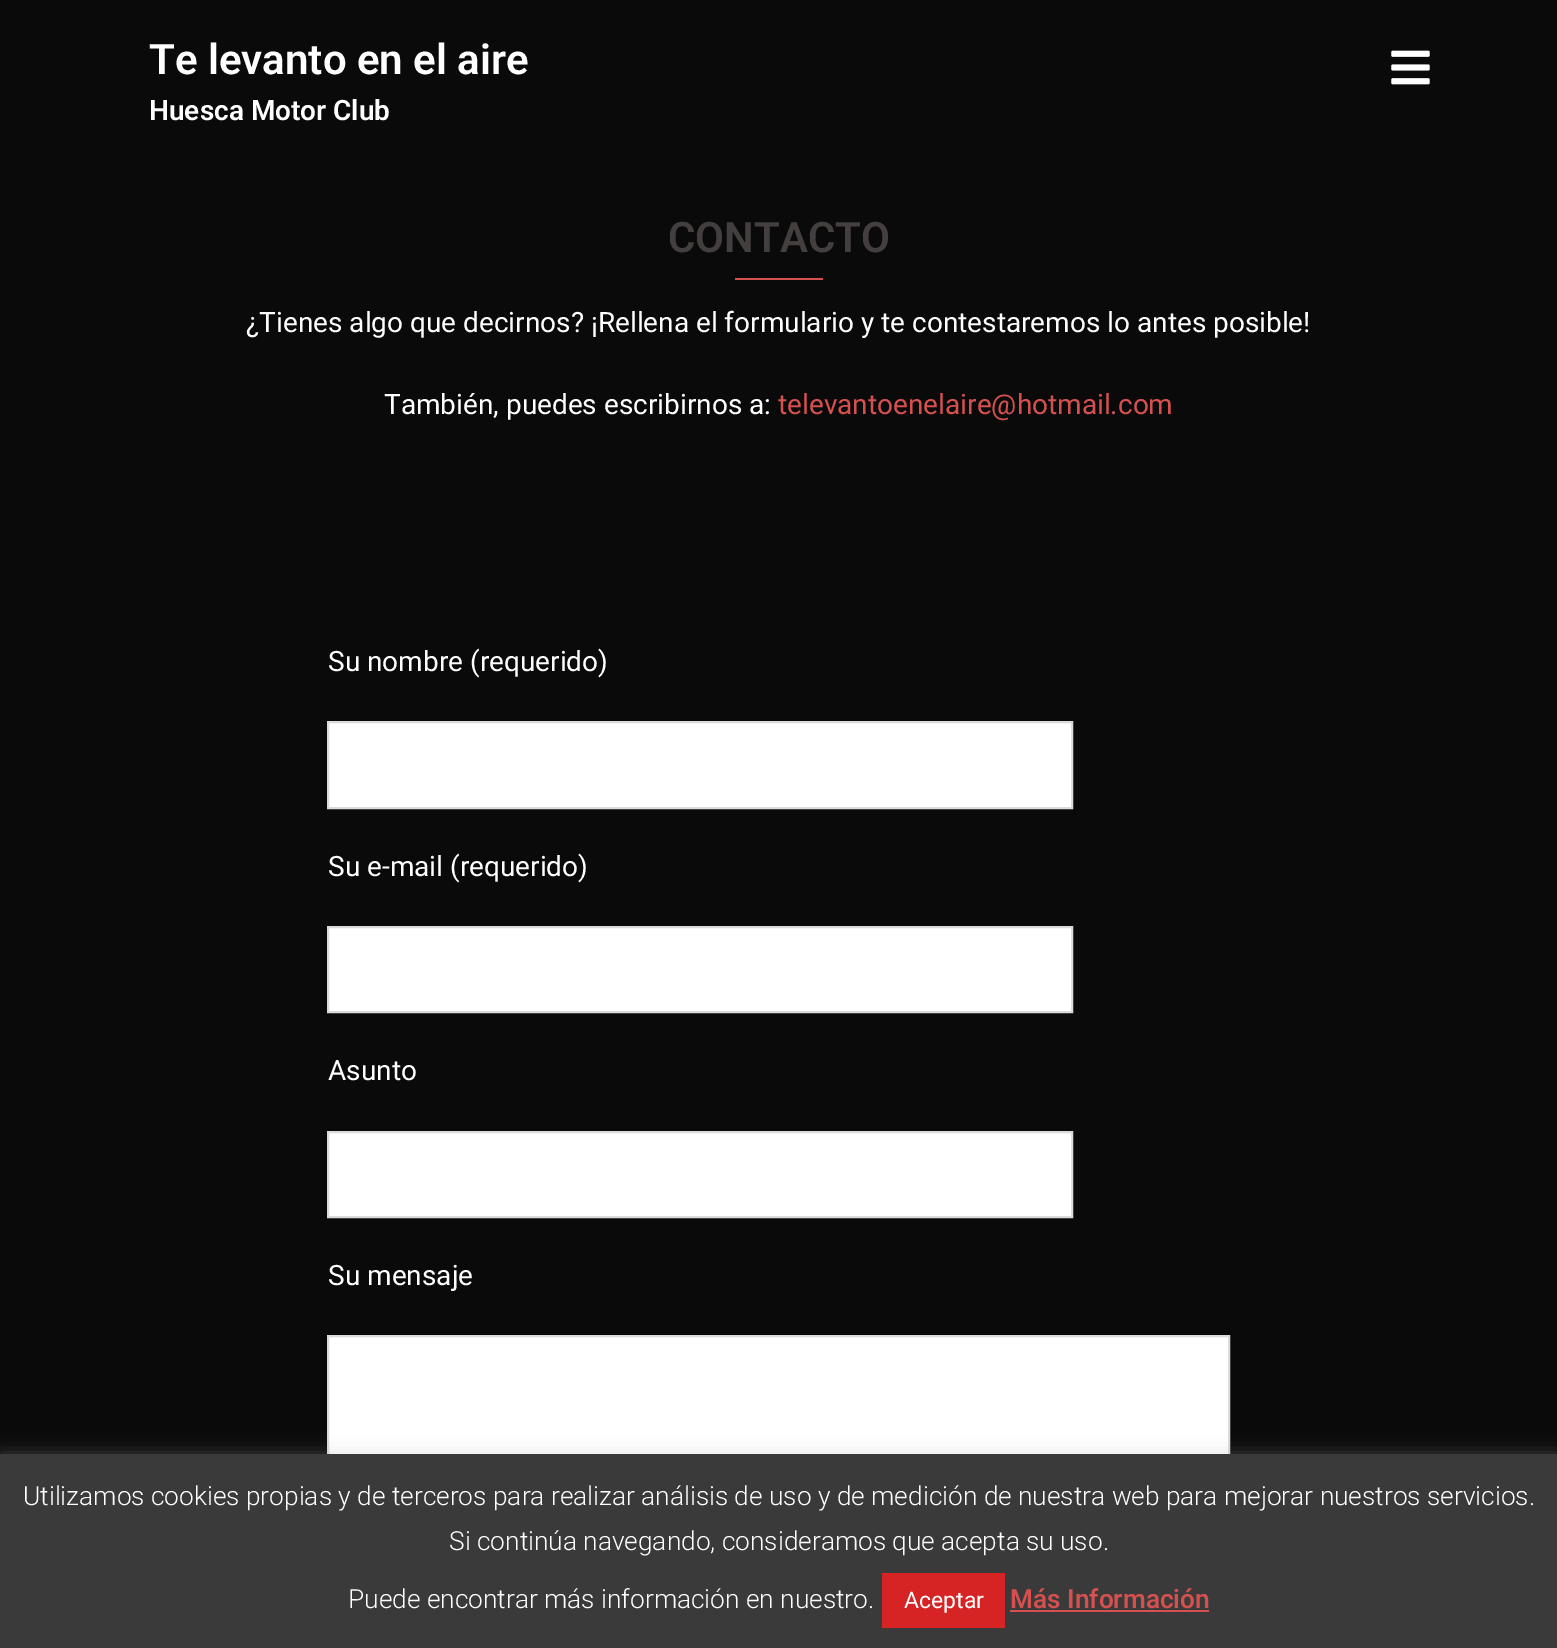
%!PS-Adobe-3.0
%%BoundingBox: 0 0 1557 1648
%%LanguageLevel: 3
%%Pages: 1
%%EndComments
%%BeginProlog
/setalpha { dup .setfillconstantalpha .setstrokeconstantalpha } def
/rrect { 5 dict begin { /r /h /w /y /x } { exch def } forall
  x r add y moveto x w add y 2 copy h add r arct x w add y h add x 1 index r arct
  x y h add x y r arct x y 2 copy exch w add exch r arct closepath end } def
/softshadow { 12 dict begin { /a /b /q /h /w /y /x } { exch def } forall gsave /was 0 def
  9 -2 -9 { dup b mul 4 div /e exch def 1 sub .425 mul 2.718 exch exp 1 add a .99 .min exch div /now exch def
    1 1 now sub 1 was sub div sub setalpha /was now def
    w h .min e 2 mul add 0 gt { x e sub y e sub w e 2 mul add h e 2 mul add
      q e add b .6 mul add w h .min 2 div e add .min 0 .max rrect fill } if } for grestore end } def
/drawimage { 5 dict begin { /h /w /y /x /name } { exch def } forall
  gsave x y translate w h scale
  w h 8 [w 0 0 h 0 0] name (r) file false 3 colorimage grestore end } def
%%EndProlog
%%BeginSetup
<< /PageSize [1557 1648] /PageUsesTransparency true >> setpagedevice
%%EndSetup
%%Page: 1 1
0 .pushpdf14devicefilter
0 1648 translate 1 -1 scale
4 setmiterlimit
0.039 setgray
0 0 1557 1648 rectfill
(images/1.raw) 1391 50 39 35 drawimage
0.839 0.314 0.314 setrgbcolor
735 278 88 2 rectfill
1 setgray
newpath 328 722 moveto 1072 722 lineto 1072 808 lineto 328 808 lineto closepath gsave fill grestore
0.859 setgray
2 setlinewidth
stroke
1 setgray
newpath 328 927 moveto 1072 927 lineto 1072 1012 lineto 328 1012 lineto closepath gsave fill grestore
0.859 setgray
stroke
1 setgray
newpath 328 1132 moveto 1072 1132 lineto 1072 1217 lineto 328 1217 lineto closepath gsave fill grestore
0.859 setgray
stroke
1 setgray
329 1337 899 117 rectfill
0.859 setgray
328 1336 901 208 rectstroke
0.675 0.671 0.671 setrgbcolor
0 1453 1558 194 0 9 0.3 softshadow
0.227 setgray
0 1454 1557 194 rectfill
0.839 0.141 0.141 setrgbcolor
882 1573 123 55 rectfill
0.839 0.314 0.314 setrgbcolor
1010 1610 199 2 rectfill
/Roboto-SemiBold [42 0 0 -42 0 0] selectfont
1 setgray
149 74 moveto (Te levanto en el aire) show
/Roboto-SemiBold [28 0 0 -28 0 0] selectfont
149 120 moveto (Huesca Motor Club) show
/Roboto-SemiBold [42 0 0 -42 0 0] selectfont
0.267 0.247 0.247 setrgbcolor
668 252 moveto (CONTACTO) show
/Roboto-Regular [28 0 0 -28 0 0] selectfont
1 setgray
246 332 moveto (¿Tienes algo que decirnos? ¡Rellena el formulario y te contestaremos lo antes posible!) show
384 414 moveto (También, puedes escribirnos a:) show
0.839 0.314 0.314 setrgbcolor
778 414 moveto (televantoenelaire@hotmail.com) show
1 setgray
328 671 moveto (Su nombre \(requerido\)) show
328 876 moveto (Su e-mail \(requerido\)) show
328 1080 moveto (Asunto) show
328 1285 moveto (Su mensaje) show
/Roboto-Light [26.25 0 0 -26.25 0 0] selectfont
23 1505 moveto (Utilizamos cookies propias y de terceros para realizar análisis de uso y de medición de nuestra web para mejorar nuestros servicios.) show
449 1550 moveto (Si continúa navegando, consideramos que acepta su uso.) show
348 1608 moveto (Puede encontrar más información en nuestro.) show
/Roboto-Regular [23 0 0 -23 0 0] selectfont
904 1608 moveto (Aceptar) show
/Roboto-Medium [26.25 0 0 -26.25 0 0] selectfont
0.839 0.314 0.314 setrgbcolor
1010 1608 moveto (Más Información) show
.poppdf14devicefilter showpage
%%EOF
